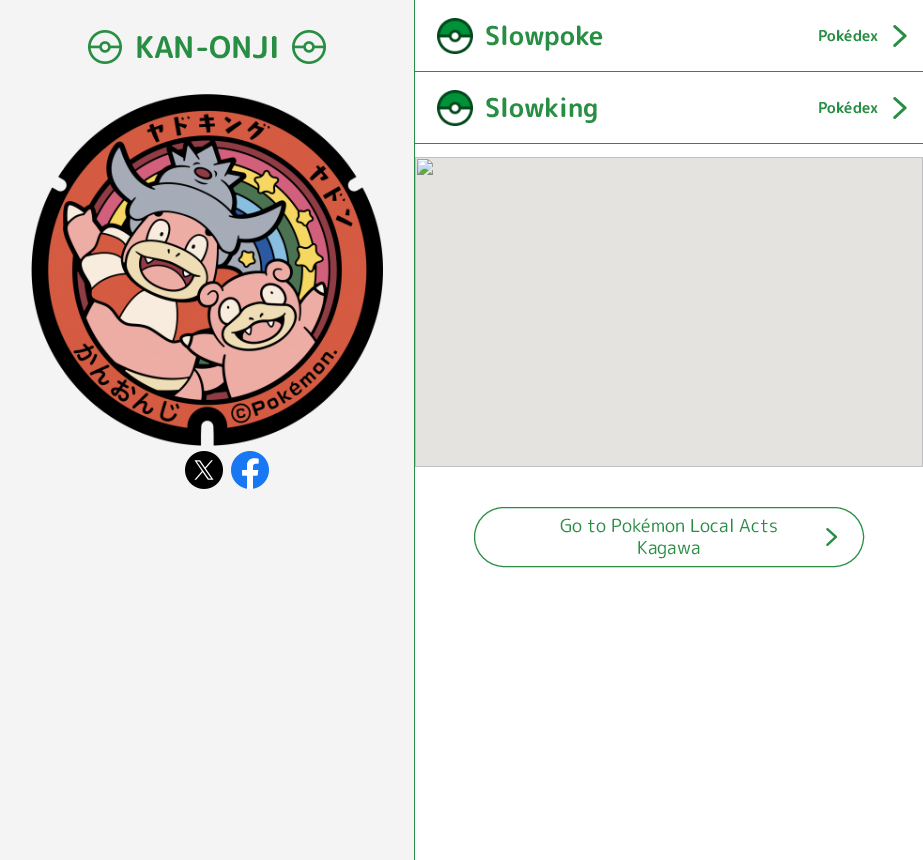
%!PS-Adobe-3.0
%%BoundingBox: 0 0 923 860
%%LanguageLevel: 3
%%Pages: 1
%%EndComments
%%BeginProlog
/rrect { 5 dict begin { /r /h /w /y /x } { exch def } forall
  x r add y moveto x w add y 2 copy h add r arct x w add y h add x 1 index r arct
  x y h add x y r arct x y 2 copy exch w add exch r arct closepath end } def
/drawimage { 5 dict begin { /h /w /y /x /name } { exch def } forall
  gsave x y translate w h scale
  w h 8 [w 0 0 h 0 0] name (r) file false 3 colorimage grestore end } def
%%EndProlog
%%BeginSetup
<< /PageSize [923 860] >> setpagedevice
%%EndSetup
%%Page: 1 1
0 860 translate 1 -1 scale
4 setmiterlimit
1 setgray
0 0 923 860 rectfill
0.957 setgray
0 0 414 860 rectfill
0.157 0.557 0.267 setrgbcolor
414 0 1 860 rectfill
(images/1.raw) 88 30 34 34 drawimage
(images/1.raw) 292 30 34 34 drawimage
(images/2.raw) 31 94 352 352 drawimage
(images/3.raw) 185 451 38 38 drawimage
(images/4.raw) 231 451 38 38 drawimage
(images/5.raw) 437 18 36 36 drawimage
(images/6.raw) 893 25 14 22 drawimage
415 71 508 1 rectfill
(images/7.raw) 437 90 36 36 drawimage
(images/6.raw) 893 97 14 22 drawimage
415 143 508 1 rectfill
(images/8.raw) 415 157 508 310 drawimage
474.5 507.5 389 59 29.5 rrect stroke
(images/9.raw) 826 528 11 18 drawimage
/RoundedMplus1cBold-Bold [30 0 0 -30 0 0] selectfont
135 58 moveto (KAN-ONJI) show
/RoundedMplus1cBold-Bold [26 0 0 -26 0 0] selectfont
485 45 moveto (Slowpoke) show
/RoundedMplus1cBold-Bold [15 0 0 -15 0 0] selectfont
818 41 moveto (Pokédex) show
/RoundedMplus1cBold-Bold [26 0 0 -26 0 0] selectfont
485 117 moveto (Slowking) show
/RoundedMplus1cBold-Bold [15 0 0 -15 0 0] selectfont
818 113 moveto (Pokédex) show
/RoundedMplus1c-Regular [18 0 0 -18 0 0] selectfont
560 532 moveto (Go to Pokémon Local Acts) show
637 554 moveto (Kagawa) show
showpage
%%EOF
